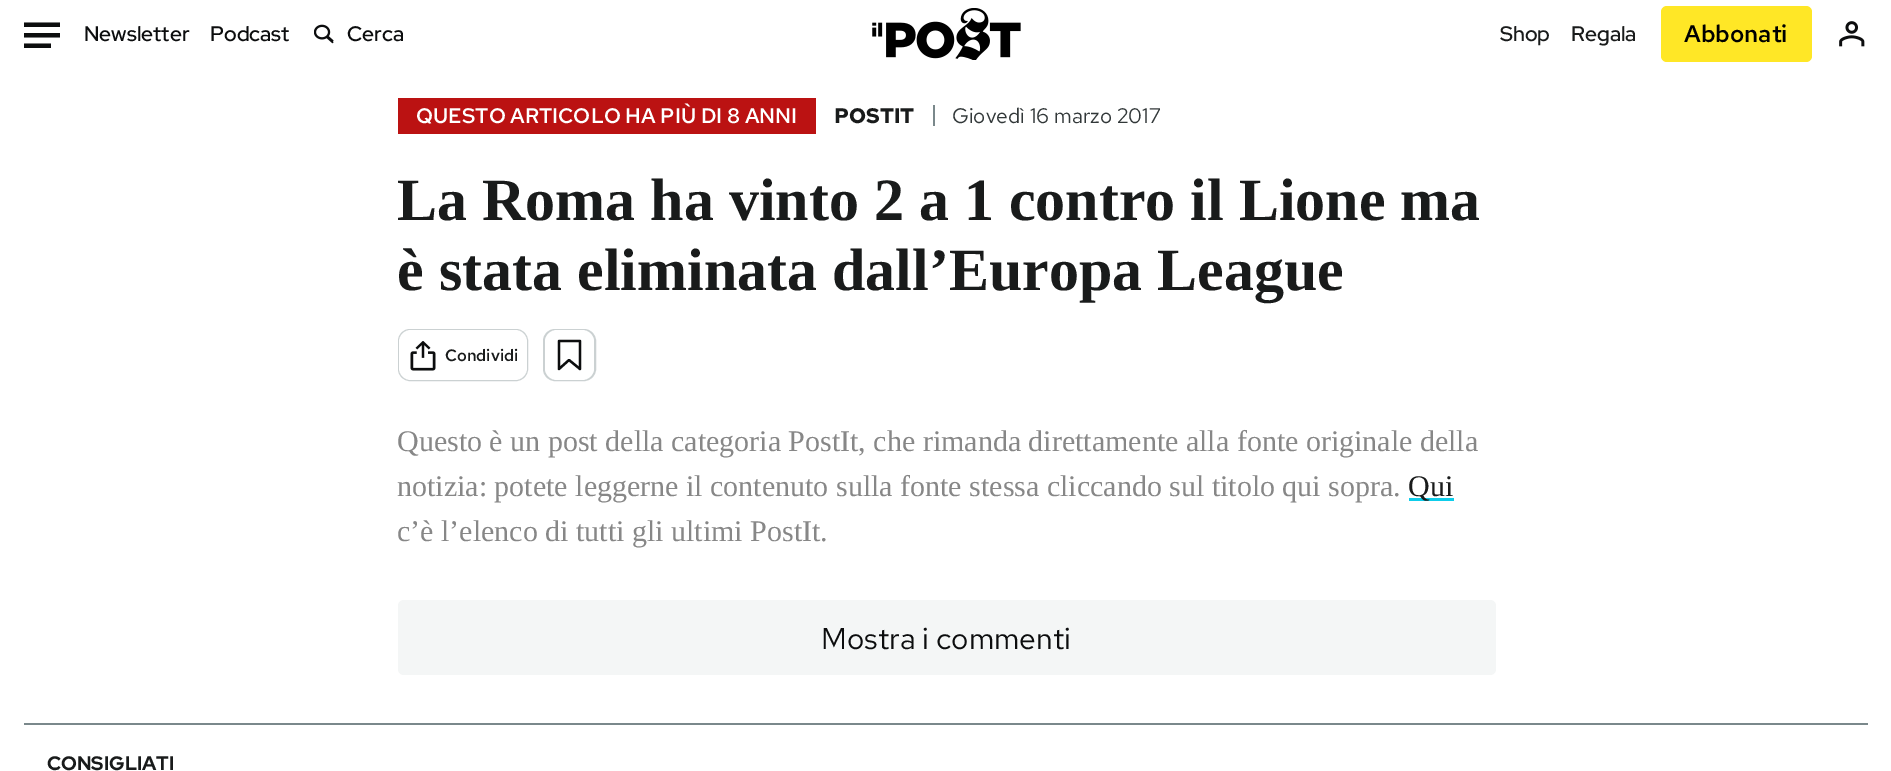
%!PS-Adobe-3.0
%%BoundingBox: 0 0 1891 771
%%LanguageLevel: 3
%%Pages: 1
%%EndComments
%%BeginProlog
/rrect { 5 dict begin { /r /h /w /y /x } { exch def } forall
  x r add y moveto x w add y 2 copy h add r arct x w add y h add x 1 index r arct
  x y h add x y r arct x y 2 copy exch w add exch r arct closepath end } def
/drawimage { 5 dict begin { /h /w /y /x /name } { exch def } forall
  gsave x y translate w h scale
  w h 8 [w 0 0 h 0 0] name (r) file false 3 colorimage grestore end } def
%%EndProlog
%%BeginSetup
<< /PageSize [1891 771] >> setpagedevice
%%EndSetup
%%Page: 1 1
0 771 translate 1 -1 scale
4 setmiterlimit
1 setgray
0 0 1891 771 rectfill
0.047 0.051 0.055 setrgbcolor
newpath 60 33 moveto 60 37.5 lineto 24 37.5 lineto 24 33 lineto closepath 51 43.5 moveto 51 48 lineto 24 48 lineto 24 43.5 lineto closepath 60 22.5 moveto 60 27 lineto 24 27 lineto 24 22.5 lineto closepath fill
(images/1.raw) 314 24 20 20 drawimage
(images/2.raw) 872 8 149 52 drawimage
1 0.906 0.149 setrgbcolor
1661 6 151 56 6 rrect fill
(images/3.raw) 1839 21 26 26 drawimage
0.733 0.071 0.071 setrgbcolor
398 98 418 36 rectfill
0.478 0.533 0.545 setrgbcolor
933 105 2 21 rectfill
0.796 0.82 0.824 setrgbcolor
2 setlinewidth
399 330 128 50 11 rrect stroke
1 setgray
399 330 128 50 12 rrect fill
(images/4.raw) 410 341 26 30 drawimage
0.796 0.82 0.824 setrgbcolor
544 330 51 50 11 rrect stroke
1 setgray
545 330 49 50 12 rrect fill
0.047 0.051 0.055 setrgbcolor
2.3 setlinewidth
1 setlinejoin
newpath 559 369 moveto 559 341 lineto 580 341 lineto 580 369 lineto 569 360 lineto closepath stroke
0.055 0.804 0.918 setrgbcolor
1409 498 45 3 rectfill
0.957 0.965 0.965 setrgbcolor
398 600 1098 75 6 rrect fill
0.478 0.533 0.545 setrgbcolor
24 723 1844 2 rectfill
/RedHatDisplay-SemiBold [21 0 0 -21 0 0] selectfont
0.047 0.051 0.055 setrgbcolor
84 41 moveto (Newsletter) show
210 41 moveto (Podcast) show
347 41 moveto (Cerca) show
0.098 0.106 0.106 setrgbcolor
1500 41 moveto (Shop) show
1571 41 moveto (Regala) show
/RedHatText-SemiBold [24 0 0 -24 0 0] selectfont
0 setgray
1684 42 moveto (Abbonati) show
/RedHatText-SemiBold [21 0 0 -21 0 0] selectfont
1 setgray
416 123 moveto (QUESTO ARTICOLO HA PIÙ DI 8 ANNI) show
/RedHatText-Bold [21 0 0 -21 0 0] selectfont
0.098 0.106 0.106 setrgbcolor
834 123 moveto (POSTIT) show
/RedHatText-Regular [21 0 0 -21 0 0] selectfont
0.196 0.22 0.224 setrgbcolor
952 123 moveto (Giovedì 16 marzo 2017) show
/LiberationSerif-Bold [60 0 0 -60 0 0] selectfont
0.098 0.106 0.106 setrgbcolor
397 220 moveto (La Roma ha vinto 2 a 1 contro il Lione ma) show
397 290 moveto (è stata eliminata dall’Europa League) show
/RedHatText-SemiBold [16.5 0 0 -16.5 0 0] selectfont
445 361 moveto (Condividi) show
/LiberationSerif-Regular [30 0 0 -30 0 0] selectfont
0.529 setgray
397 451 moveto (Questo è un post della categoria PostIt, che rimanda direttamente alla fonte originale della) show
397 496 moveto (notizia: potete leggerne il contenuto sulla fonte stessa cliccando sul titolo qui sopra.) show
0.098 0.106 0.106 setrgbcolor
1408 496 moveto (Qui) show
0.529 setgray
397 541 moveto (c’è l’elenco di tutti gli ultimi PostIt.) show
/RedHatText-Regular [30 0 0 -30 0 0] selectfont
0.047 0.051 0.055 setrgbcolor
821 649 moveto (Mostra i commenti) show
/RedHatDisplay-Bold [19.5 0 0 -19.5 0 0] selectfont
0.098 0.106 0.106 setrgbcolor
47 770 moveto (CONSIGLIATI) show
showpage
%%EOF
